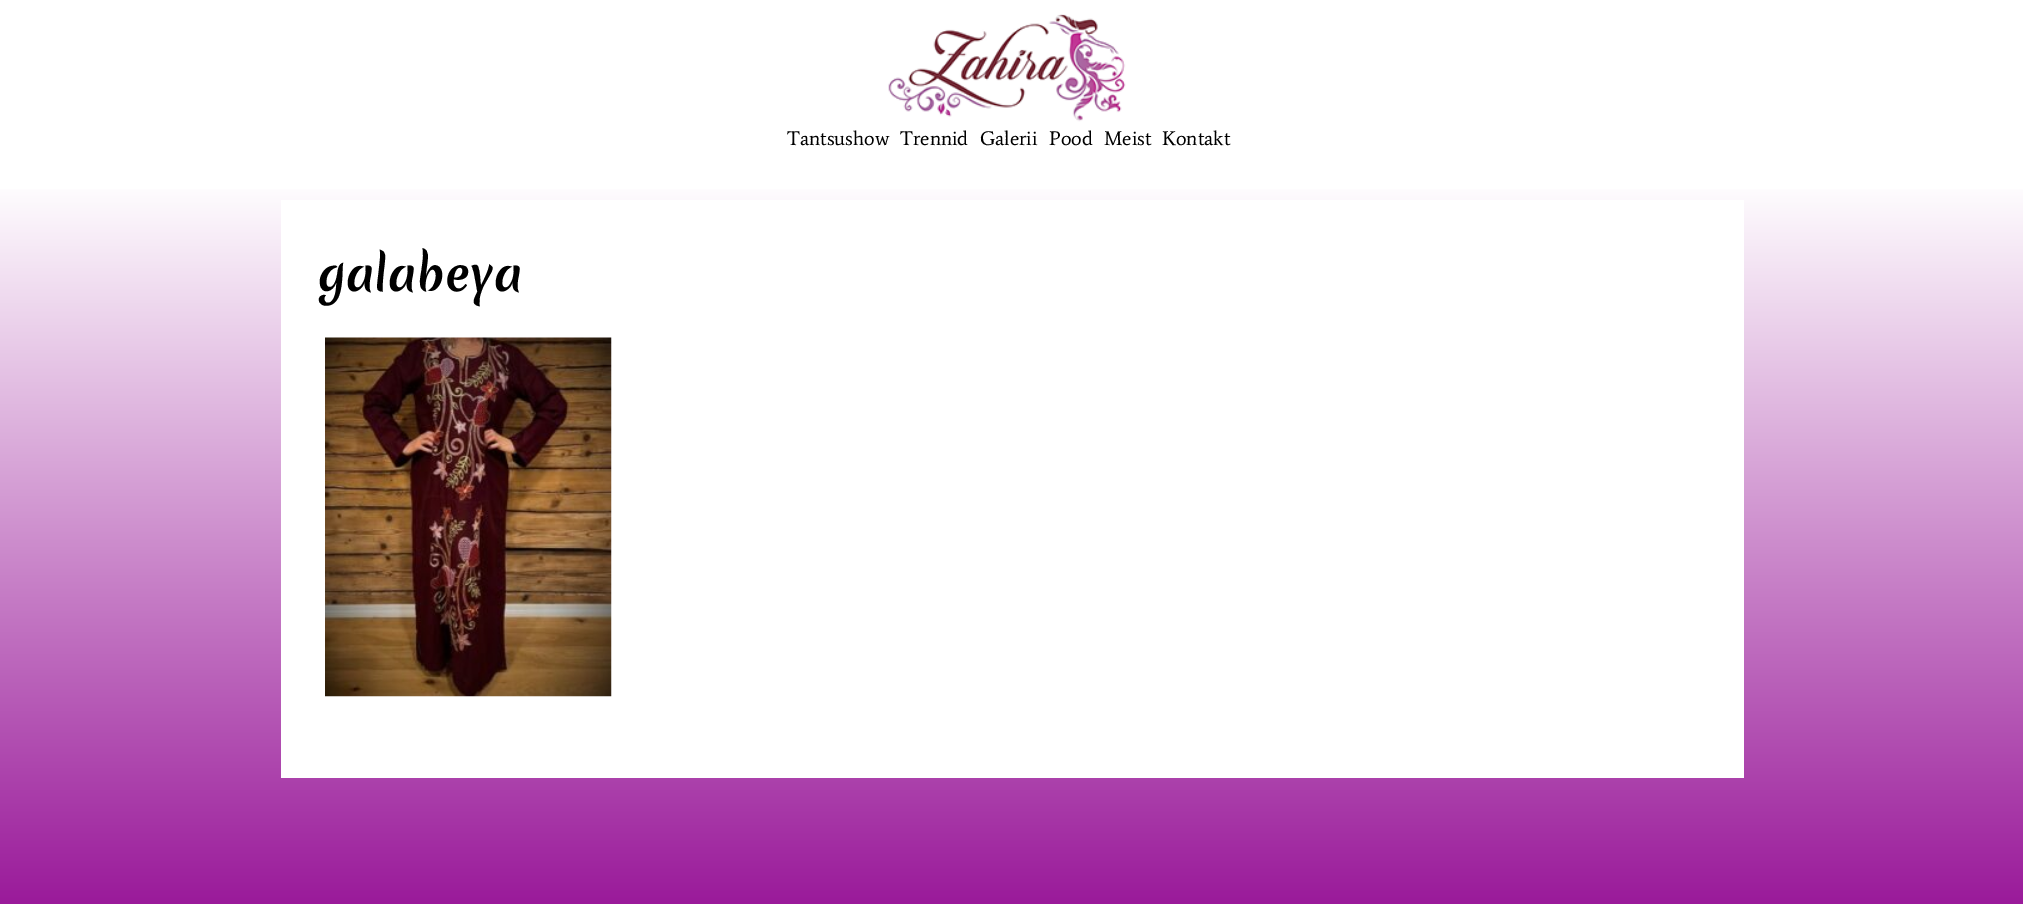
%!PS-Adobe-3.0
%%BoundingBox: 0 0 2023 904
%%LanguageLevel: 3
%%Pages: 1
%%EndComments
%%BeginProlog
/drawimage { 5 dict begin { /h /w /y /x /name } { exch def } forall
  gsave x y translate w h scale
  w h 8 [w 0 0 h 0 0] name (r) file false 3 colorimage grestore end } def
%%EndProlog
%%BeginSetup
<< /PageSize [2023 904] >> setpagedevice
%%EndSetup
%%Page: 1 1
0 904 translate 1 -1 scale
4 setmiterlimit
1 setgray
0 0 2023 904 rectfill
gsave newpath 0 189 moveto 2023 189 lineto 2023 904 lineto 0 904 lineto closepath clip newpath
<< /ShadingType 2 /ColorSpace /DeviceRGB /Coords [1012 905 1012 0] /Extend [true true] /Function << /FunctionType 3 /Domain [0 1] /Functions [<< /FunctionType 2 /Domain [0 1] /C0 [0.604 0.102 0.604] /C1 [1 1 1] /N 1 >> << /FunctionType 2 /Domain [0 1] /C0 [1 1 1] /C1 [1 1 1] /N 1 >>] /Bounds [0.8] /Encode [0 1 0 1] >> >> shfill grestore
(images/1.raw) 888 14 238 108 drawimage
281 200 1463 578 rectfill
(images/2.raw) 325 337 287 360 drawimage
/Average-Regular [20 0 0 -20 0 0] selectfont
0 setgray
787 145 moveto (Tantsushow) show
900 145 moveto (Trennid) show
980 145 moveto (Galerii) show
1049 145 moveto (Pood) show
1104 145 moveto (Meist) show
1162 145 moveto (Kontakt) show
/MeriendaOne-Regular [45 0 0 -45 0 0] selectfont
318 291 moveto (galabeya) show
showpage
%%EOF
